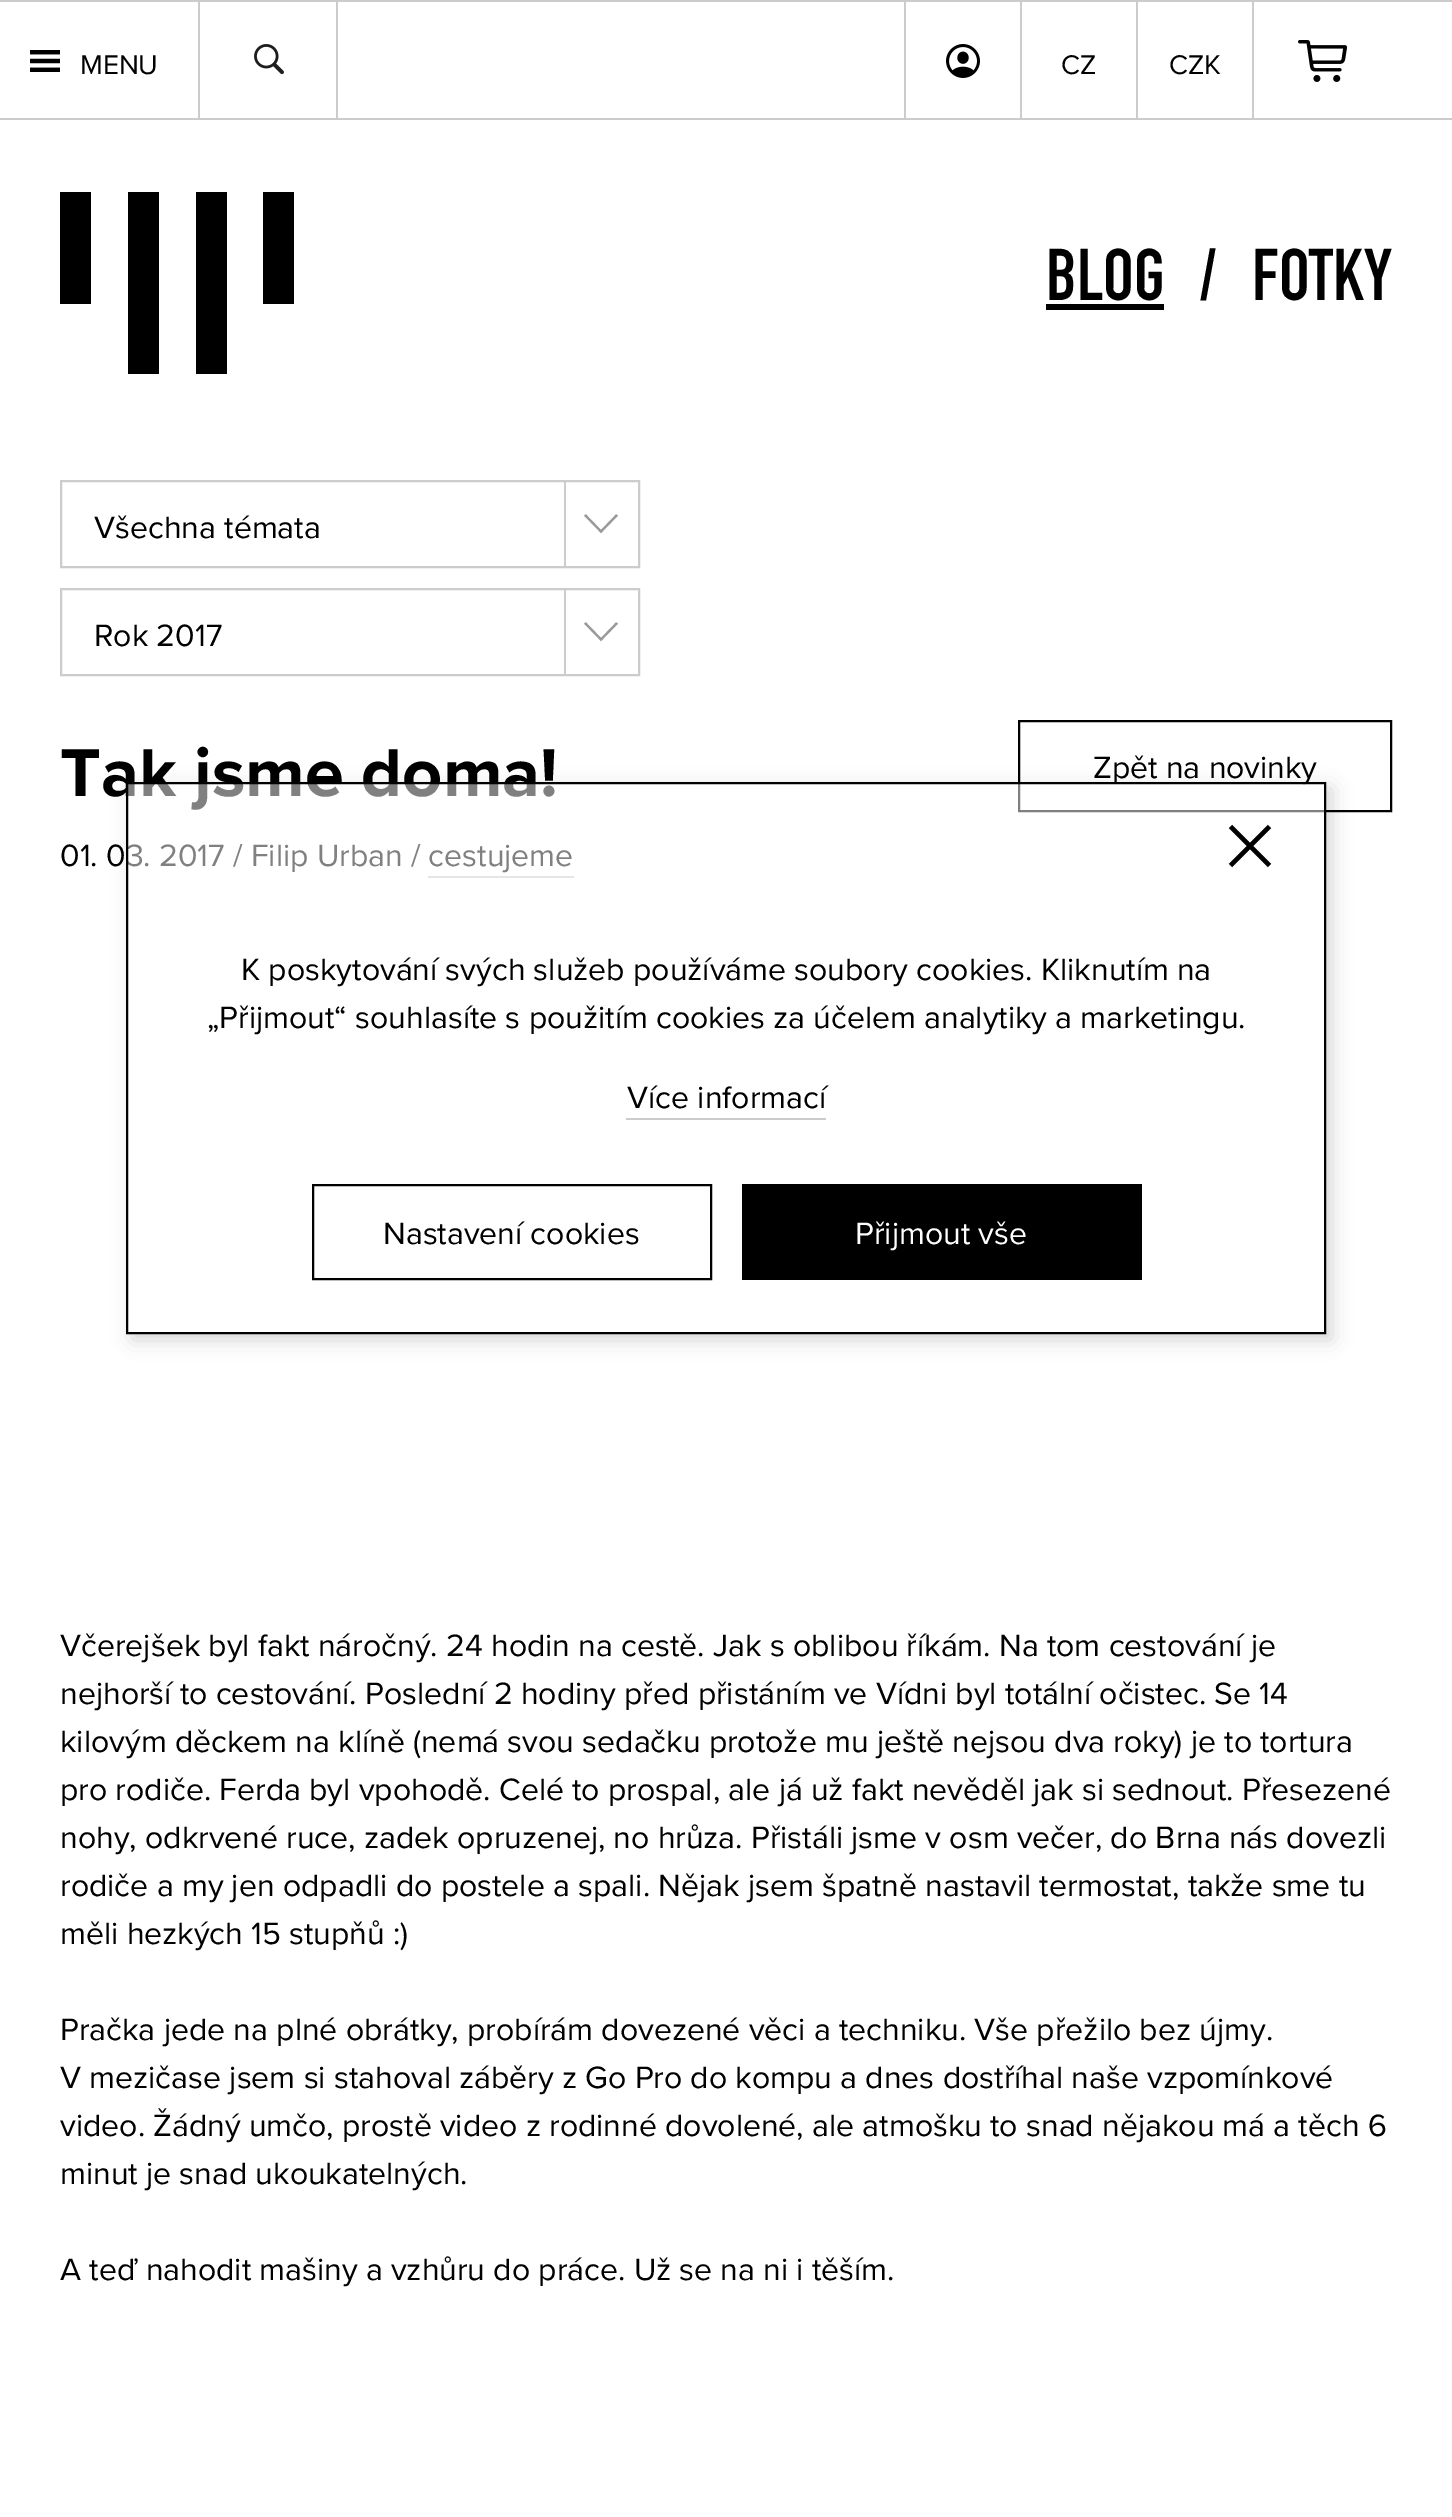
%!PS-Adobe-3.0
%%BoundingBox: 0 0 1452 2517
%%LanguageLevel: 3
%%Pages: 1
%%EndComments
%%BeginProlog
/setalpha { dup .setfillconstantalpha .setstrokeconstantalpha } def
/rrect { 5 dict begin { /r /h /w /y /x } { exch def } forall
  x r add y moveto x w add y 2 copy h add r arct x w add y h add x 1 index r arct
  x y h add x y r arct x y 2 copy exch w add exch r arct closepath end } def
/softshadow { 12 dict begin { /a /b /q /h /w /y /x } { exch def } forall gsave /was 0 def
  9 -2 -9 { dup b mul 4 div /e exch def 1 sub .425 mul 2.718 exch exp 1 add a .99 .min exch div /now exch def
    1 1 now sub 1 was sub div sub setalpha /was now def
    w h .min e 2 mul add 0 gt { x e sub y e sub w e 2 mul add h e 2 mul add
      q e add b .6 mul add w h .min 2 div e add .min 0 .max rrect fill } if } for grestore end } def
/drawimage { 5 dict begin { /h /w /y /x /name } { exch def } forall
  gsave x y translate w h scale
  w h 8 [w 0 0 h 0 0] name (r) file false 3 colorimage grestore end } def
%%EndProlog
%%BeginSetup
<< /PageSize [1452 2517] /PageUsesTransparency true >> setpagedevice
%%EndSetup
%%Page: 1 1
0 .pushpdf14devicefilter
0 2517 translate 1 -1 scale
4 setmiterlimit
1 setgray
0 0 1452 2517 rectfill
0.8 setgray
0 0 1452 2 rectfill
0 118 1452 2 rectfill
(images/1.raw) 30 50 30 22 drawimage
(images/2.raw) 254 44 30 31 drawimage
336 2 2 116 rectfill
198 2 2 116 rectfill
(images/3.raw) 946 44 34 34 drawimage
904 2 2 116 rectfill
1020 2 2 116 rectfill
1136 2 2 116 rectfill
(images/4.raw) 1298 40 49 42 drawimage
1252 2 2 116 rectfill
0 setgray
60 192 31 112 rectfill
128 192 31 182 rectfill
196 192 31 182 rectfill
263 192 31 112 rectfill
1046 304 118 6 rectfill
0.6 setgray
2.2 setlinewidth
newpath 617 515 moveto 601 531.5 lineto 585 515 lineto stroke
0.8 setgray
2 setlinewidth
61 481 578 86 rectstroke
564 482 2 84 rectfill
0.6 setgray
2.2 setlinewidth
newpath 617 623 moveto 601 639.5 lineto 585 623 lineto stroke
0.8 setgray
2 setlinewidth
61 589 578 86 rectstroke
564 590 2 84 rectfill
0 setgray
1019 721 372 90 rectstroke
0.8 setgray
428 876 146 2 rectfill
gsave
newpath 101 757 moveto 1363 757 lineto 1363 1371 lineto 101 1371 lineto closepath 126 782 moveto 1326 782 lineto 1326 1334 lineto 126 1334 lineto closepath eoclip newpath
0 setgray
132 788 1200 552 0 10 0.16 softshadow
grestore
/ProximaNova-Regular [28 0 0 -28 0 0] selectfont
0 setgray
80 74 moveto (MENU) show
1061 74 moveto (CZ) show
1169 74 moveto (CZK) show
/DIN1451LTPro-Regular [72 0 0 -72 0 0] selectfont
1046 300 moveto (BLOG) show
1200 300 moveto (/) show
1252 300 moveto (FOTKY) show
/ProximaNova-Regular [32 0 0 -32 0 0] selectfont
94 538 moveto (Všechna témata) show
94 646 moveto (Rok 2017) show
/ProximaNova-Bold [70 0 0 -70 0 0] selectfont
60 796 moveto (Tak jsme doma!) show
/ProximaNova-Regular [32 0 0 -32 0 0] selectfont
1093 778 moveto (Zpět na novinky) show
60 866 moveto (01. 03. 2017 / Filip Urban / cestujeme) show
60 1656 moveto (Včerejšek byl fakt náročný. 24 hodin na cestě. Jak s oblibou říkám. Na tom cestování je) show
60 1704 moveto (nejhorší to cestování. Poslední 2 hodiny před přistáním ve Vídni byl totální očistec. Se 14) show
60 1752 moveto (kilovým děckem na klíně \(nemá svou sedačku protože mu ještě nejsou dva roky\) je to tortura) show
60 1800 moveto (pro rodiče. Ferda byl vpohodě. Celé to prospal, ale já už fakt nevěděl jak si sednout. Přesezené) show
60 1848 moveto (nohy, odkrvené ruce, zadek opruzenej, no hrůza. Přistáli jsme v osm večer, do Brna nás dovezli) show
60 1896 moveto (rodiče a my jen odpadli do postele a spali. Nějak jsem špatně nastavil termostat, takže sme tu) show
60 1944 moveto (měli hezkých 15 stupňů :\)) show
60 2040 moveto (Pračka jede na plné obrátky, probírám dovezené věci a techniku. Vše přežilo bez újmy.) show
60 2088 moveto (V mezičase jsem si stahoval záběry z Go Pro do kompu a dnes dostříhal naše vzpomínkové) show
60 2136 moveto (video. Žádný umčo, prostě video z rodinné dovolené, ale atmošku to snad nějakou má a těch 6) show
60 2184 moveto (minut je snad ukoukatelných.) show
60 2280 moveto (A teď nahodit mašiny a vzhůru do práce. Už se na ni i těším.) show
0.5 setalpha
1 setgray
128 784 1196 94 rectfill
1 setalpha
0 setgray
127 783 1198 550 rectstroke
4.4 setlinewidth
newpath 1269.5 826.5 moveto 1230.5 865.5 lineto 1230.5 826.5 moveto 1269.5 865.5 lineto stroke
241 980 moveto (K poskytování svých služeb používáme soubory cookies. Kliknutím na) show
207 1028 moveto („Přijmout“ souhlasíte s použitím cookies za účelem analytiky a marketingu.) show
627 1108 moveto (Více informací) show
0.8 setgray
626 1118 200 2 rectfill
0 setgray
2 setlinewidth
313 1185 398 94 rectstroke
383 1244 moveto (Nastavení cookies) show
742 1184 400 96 rectfill
1 setgray
855 1244 moveto (Přijmout vše) show
.poppdf14devicefilter showpage
%%EOF
